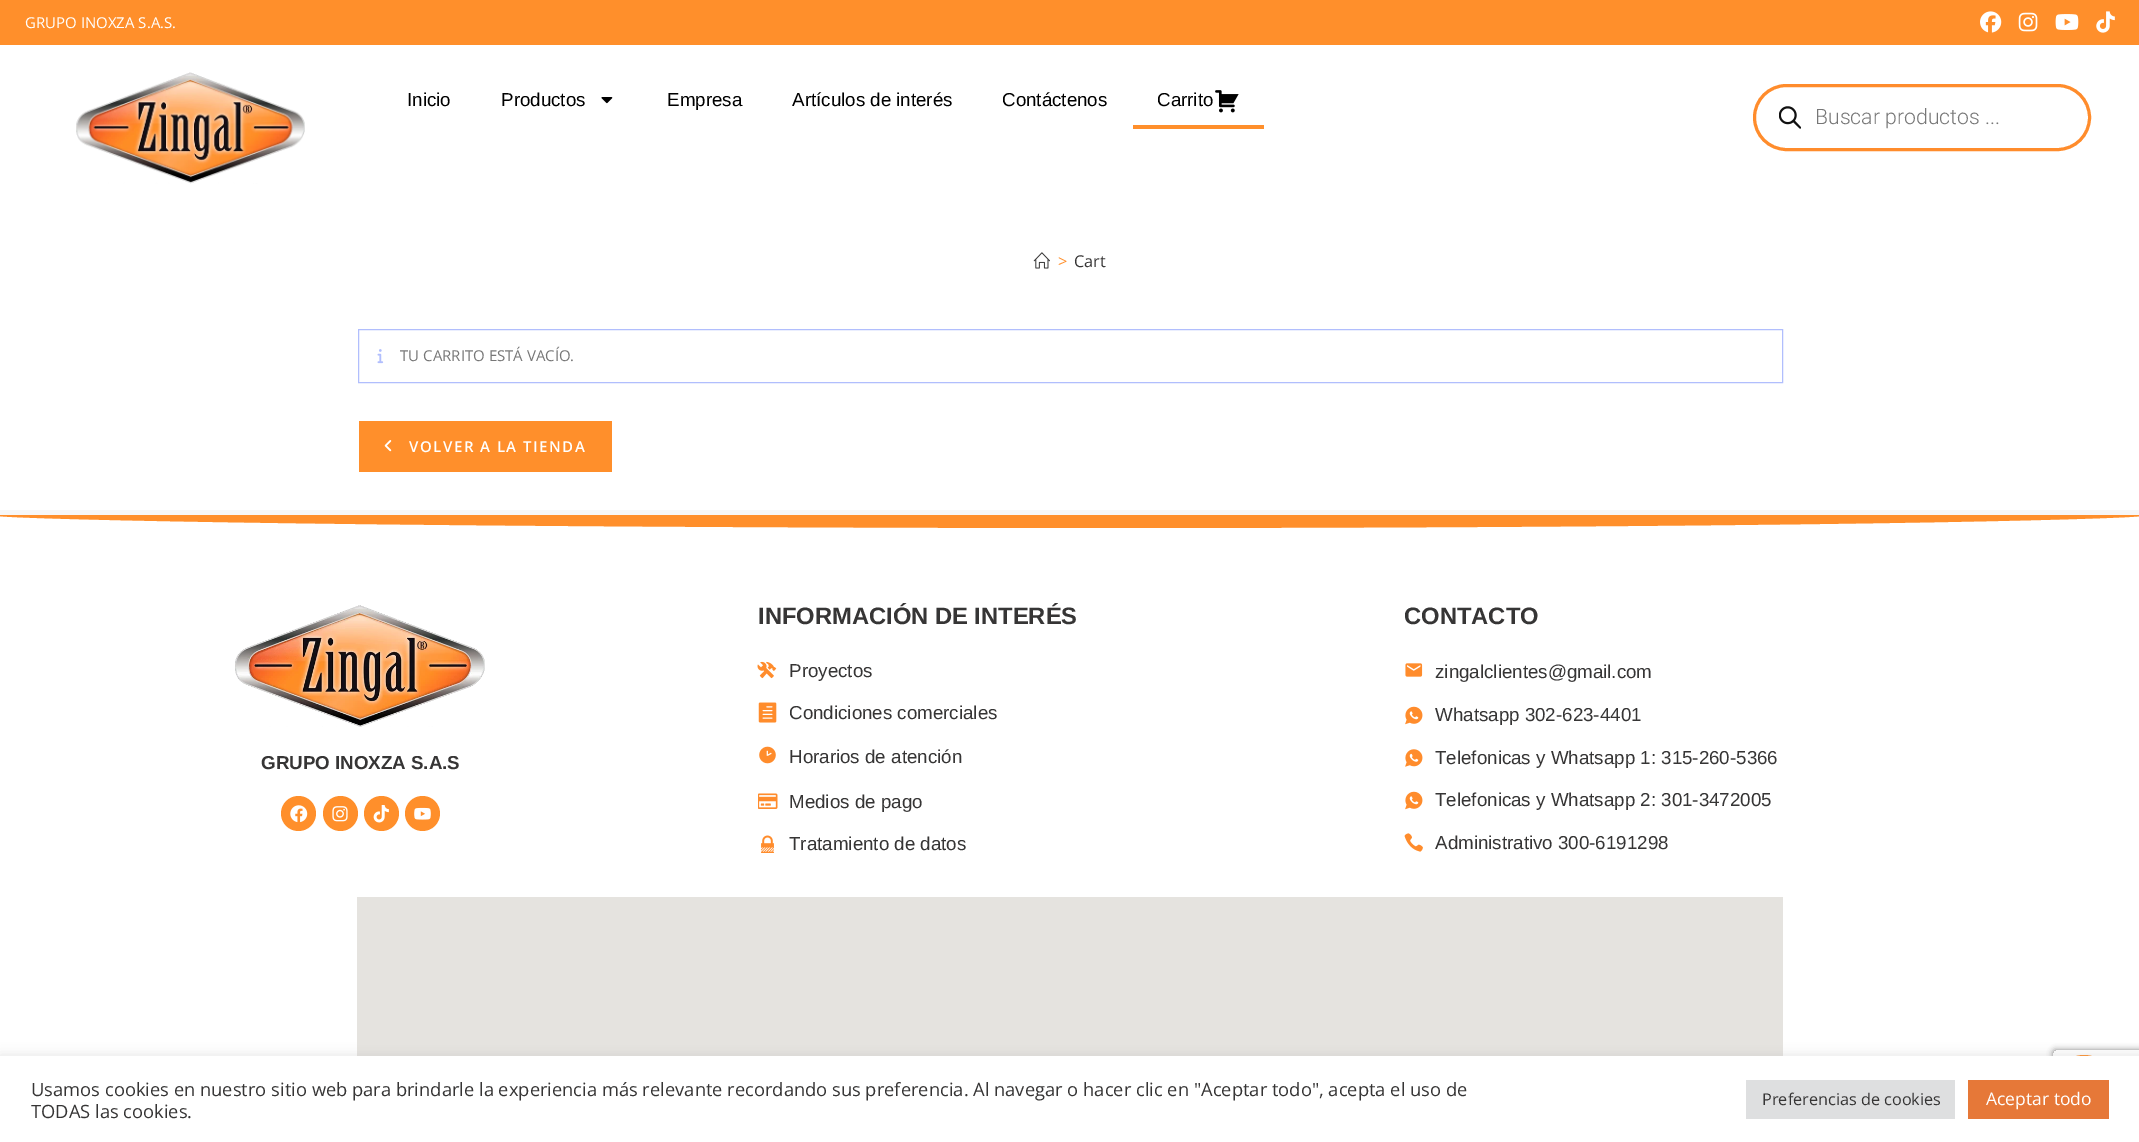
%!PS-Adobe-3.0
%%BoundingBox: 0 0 2139 1142
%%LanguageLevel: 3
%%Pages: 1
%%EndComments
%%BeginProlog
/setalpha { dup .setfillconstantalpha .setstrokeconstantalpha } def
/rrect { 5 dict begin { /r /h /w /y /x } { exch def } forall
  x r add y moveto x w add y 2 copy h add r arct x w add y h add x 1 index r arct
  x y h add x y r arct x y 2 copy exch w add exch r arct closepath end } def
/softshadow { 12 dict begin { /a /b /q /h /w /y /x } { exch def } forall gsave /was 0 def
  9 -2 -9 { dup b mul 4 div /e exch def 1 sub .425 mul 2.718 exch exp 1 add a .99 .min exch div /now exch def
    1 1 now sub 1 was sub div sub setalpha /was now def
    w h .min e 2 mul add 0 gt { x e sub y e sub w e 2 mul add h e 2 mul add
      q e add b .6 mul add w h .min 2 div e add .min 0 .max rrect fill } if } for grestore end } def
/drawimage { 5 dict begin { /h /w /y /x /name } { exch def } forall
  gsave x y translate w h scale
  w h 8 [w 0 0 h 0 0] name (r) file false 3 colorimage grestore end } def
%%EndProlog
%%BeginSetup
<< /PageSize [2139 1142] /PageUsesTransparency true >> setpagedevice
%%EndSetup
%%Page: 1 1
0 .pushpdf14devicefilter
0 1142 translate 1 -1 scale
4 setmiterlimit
1 setgray
0 0 2139 1142 rectfill
1 0.561 0.169 setrgbcolor
0 0 2139 45 rectfill
(images/1.raw) 1980 11 22 22 drawimage
(images/2.raw) 2018 12 20 20 drawimage
(images/3.raw) 2055 14 24 16 drawimage
(images/4.raw) 2096 11 19 22 drawimage
(images/5.raw) 76 72 229 112 drawimage
(images/6.raw) 601 97 12 7 drawimage
(images/7.raw) 1215 90 24 23 drawimage
1133 125 131 4 rectfill
1 0.549 0.173 setrgbcolor
3 setlinewidth
1754.5 85.5 335 64 32 rrect stroke
(images/8.raw) 1779 106 22 23 drawimage
(images/9.raw) 1033 252 17 17 drawimage
0.694 0.745 0.992 setrgbcolor
1 setlinewidth
358.5 329.5 1424 53 rectstroke
(images/10.raw) 377 349 7 15 drawimage
1 0.561 0.169 setrgbcolor
359 421 253 51 rectfill
(images/11.raw) 384 440 8 12 drawimage
0.969 setgray
0 510 2139 5 rectfill
1 0.561 0.169 setrgbcolor
newpath 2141 516 moveto 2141 515 lineto -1 515 lineto -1 516 lineto 1 518 271 527 1070 528 curveto 1869 528 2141 518 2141 516 curveto closepath fill
(images/12.raw) 235 605 250 122 drawimage
newpath 298.5 813.5 17.5 0 360 arc closepath fill
(images/13.raw) 290 805 18 18 drawimage
newpath 340.5 813.5 17.5 0 360 arc closepath fill
(images/14.raw) 332 806 16 16 drawimage
newpath 381.5 813.5 17.5 0 360 arc closepath fill
(images/15.raw) 373 805 16 18 drawimage
newpath 422.5 813.5 17.5 0 360 arc closepath fill
(images/16.raw) 414 807 17 13 drawimage
(images/17.raw) 757 661 20 18 drawimage
(images/18.raw) 758 702 19 21 drawimage
(images/19.raw) 759 746 17 18 drawimage
(images/20.raw) 758 793 20 16 drawimage
(images/21.raw) 761 835 13 18 drawimage
(images/22.raw) 1405 663 18 14 drawimage
(images/23.raw) 1405 706 18 19 drawimage
(images/24.raw) 1405 749 18 18 drawimage
(images/23.raw) 1405 791 18 19 drawimage
(images/25.raw) 1404 833 19 19 drawimage
0.898 0.89 0.875 setrgbcolor
357 897 1426 159 rectfill
gsave
newpath 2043 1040 moveto 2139 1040 lineto 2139 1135 lineto 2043 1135 lineto closepath 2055.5 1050 moveto 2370.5 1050 lineto 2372 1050 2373 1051 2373 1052.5 curveto 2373 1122.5 lineto 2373 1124 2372 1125 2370.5 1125 curveto 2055.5 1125 lineto 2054 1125 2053 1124 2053 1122.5 curveto 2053 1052.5 lineto 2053 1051 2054 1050 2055.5 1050 curveto closepath eoclip newpath
0.502 setgray
2053 1050 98 75 2.5 3 1 softshadow
grestore
1 0.561 0.169 setrgbcolor
2053 1055 62 63 31 rrect fill
0.675 0.671 0.671 setrgbcolor
0 1055 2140 86 0 6 0.3 softshadow
1 setgray
0 1056 2139 86 rectfill
0.871 0.875 0.878 setrgbcolor
1746 1080 209 39 rectfill
0.902 0.471 0.22 setrgbcolor
1968 1080 141 39 rectfill
/OpenSans-Regular [15 0 0 -15 0 0] selectfont
1 setgray
25 28 moveto (GRUPO INOXZA S.A.S.) show
/LiberationSans-Regular [18.75 0 0 -18.75 0 0] selectfont
0 setgray
407 106 moveto (Inicio) show
501 106 moveto (Productos) show
667 106 moveto (Empresa) show
792 106 moveto (Artículos de interés) show
1002 106 moveto (Contáctenos) show
1157 106 moveto (Carrito) show
/Roboto-Light [21.25 0 0 -21.25 0 0] selectfont
0.467 setgray
1815 124 moveto (Buscar productos ...) show
/OpenSans-Regular [16.25 0 0 -16.25 0 0] selectfont
1 0.561 0.169 setrgbcolor
1058 267 moveto (>) show
0.212 0.208 0.208 setrgbcolor
1074 267 moveto (Cart) show
/OpenSans-Regular [15 0 0 -15 0 0] selectfont
0.467 setgray
400 361 moveto (TU CARRITO ESTÁ VACÍO.) show
/OpenSans-SemiBold [15 0 0 -15 0 0] selectfont
1 setgray
409 452 moveto 1.5 0 (VOLVER A LA TIENDA) ashow
/LiberationSans-Bold [18.75 0 0 -18.75 0 0] selectfont
0.212 0.208 0.208 setrgbcolor
261 769 moveto (GRUPO INOXZA S.A.S) show
/LiberationSans-Bold [23.75 0 0 -23.75 0 0] selectfont
758 624 moveto (INFORMACIÓN DE INTERÉS) show
/LiberationSans-Regular [18.75 0 0 -18.75 0 0] selectfont
789 677 moveto (Proyectos) show
789 719 moveto (Condiciones comerciales) show
789 763 moveto (Horarios de atención) show
789 808 moveto (Medios de pago) show
789 850 moveto (Tratamiento de datos) show
/LiberationSans-Bold [23.75 0 0 -23.75 0 0] selectfont
1404 624 moveto (CONTACTO) show
/LiberationSans-Regular [18.75 0 0 -18.75 0 0] selectfont
1435 678 moveto (zingalclientes@gmail.com) show
1435 721 moveto (Whatsapp 302-623-4401) show
1435 764 moveto (Telefonicas y Whatsapp 1: 315-260-5366) show
1435 806 moveto (Telefonicas y Whatsapp 2: 301-3472005) show
1435 849 moveto (Administrativo 300-6191298) show
/OpenSans-Regular [18.33 0 0 -18.33 0 0] selectfont
31 1096 moveto (Usamos cookies en nuestro sitio web para brindarle la experiencia más relevante recordando sus preferencia. Al navegar o hacer clic en "Aceptar todo", acepta el uso de) show
31 1118 moveto (TODAS las cookies.) show
/OpenSans-Regular [16.25 0 0 -16.25 0 0] selectfont
1762 1105 moveto (Preferencias de cookies) show
/OpenSans-Regular [17.5 0 0 -17.5 0 0] selectfont
1 setgray
1986 1105 moveto (Aceptar todo) show
.poppdf14devicefilter showpage
%%EOF
